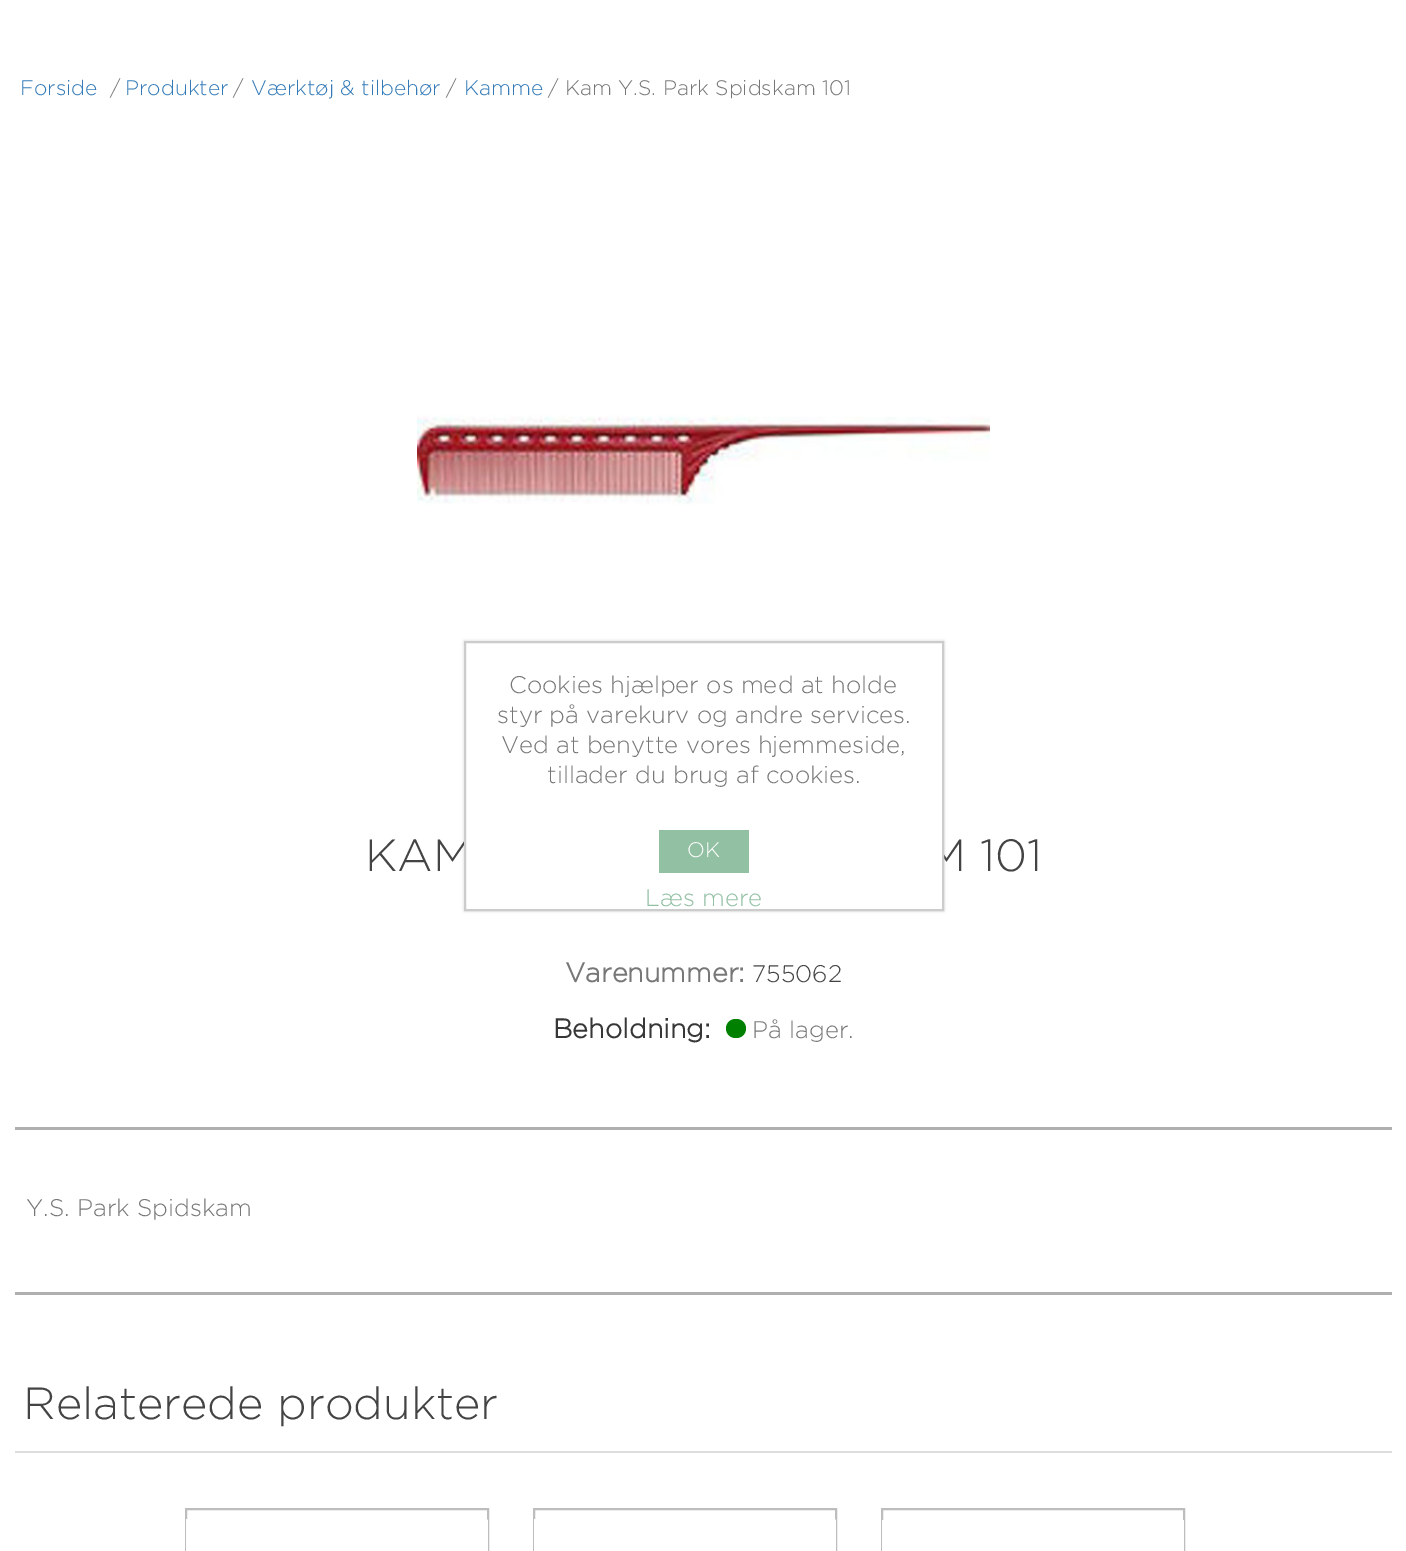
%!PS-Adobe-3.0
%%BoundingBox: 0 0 1406 1551
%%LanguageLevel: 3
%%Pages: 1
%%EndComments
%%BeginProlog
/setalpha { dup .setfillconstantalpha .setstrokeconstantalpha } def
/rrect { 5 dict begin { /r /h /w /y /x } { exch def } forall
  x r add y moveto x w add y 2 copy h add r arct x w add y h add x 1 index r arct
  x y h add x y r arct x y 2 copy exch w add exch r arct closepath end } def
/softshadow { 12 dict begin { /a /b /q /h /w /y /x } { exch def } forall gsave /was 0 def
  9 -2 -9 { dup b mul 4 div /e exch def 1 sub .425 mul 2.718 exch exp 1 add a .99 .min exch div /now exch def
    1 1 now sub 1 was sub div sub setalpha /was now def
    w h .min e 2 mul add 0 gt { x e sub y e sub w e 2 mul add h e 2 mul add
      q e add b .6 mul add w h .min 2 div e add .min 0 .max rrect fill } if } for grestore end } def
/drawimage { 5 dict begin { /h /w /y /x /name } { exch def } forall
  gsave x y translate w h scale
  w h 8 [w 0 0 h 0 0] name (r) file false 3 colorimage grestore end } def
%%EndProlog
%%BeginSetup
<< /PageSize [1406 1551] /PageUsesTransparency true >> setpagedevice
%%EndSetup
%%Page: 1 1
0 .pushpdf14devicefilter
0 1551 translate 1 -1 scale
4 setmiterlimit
1 setgray
0 0 1406 1551 rectfill
(images/1.raw) 417 415 573 90 drawimage
0 0.502 0 setrgbcolor
726 1019 20 19 9.5 rrect fill
0.686 setgray
15 1127 1377 3 rectfill
15 1292 1377 3 rectfill
0.867 setgray
15 1451 1377 2 rectfill
0.741 setgray
2 setlinewidth
186 1509 302 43 rectstroke
1 setgray
186 1520 302 31 rectfill
(images/2.raw) 186 1519 302 1 drawimage
0.741 setgray
534 1509 302 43 rectstroke
1 setgray
534 1520 302 31 rectfill
(images/2.raw) 534 1519 302 1 drawimage
0.741 setgray
882 1509 302 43 rectstroke
1 setgray
882 1520 302 31 rectfill
0 setgray
464 641 480 270 0 1.5 0.15 softshadow
/Gotham-Light [21 0 0 -21 0 0] selectfont
0.2 0.478 0.718 setrgbcolor
20 95 moveto (Forside) show
0.467 setgray
110 95 moveto (/) show
0.2 0.478 0.718 setrgbcolor
125 95 moveto (Produkter) show
0.467 setgray
233 95 moveto (/) show
0.2 0.478 0.718 setrgbcolor
251 95 moveto (Værktøj & tilbehør) show
0.467 setgray
446 95 moveto (/) show
0.2 0.478 0.718 setrgbcolor
464 95 moveto (Kamme) show
0.467 setgray
548 95 moveto (/ Kam Y.S. Park Spidskam 101) show
/Gotham-Light [45 0 0 -45 0 0] selectfont
0.267 setgray
365 871 moveto (KAM) show
927 871 moveto (M 101) show
/Gotham-Bold [27 0 0 -27 0 0] selectfont
0.467 setgray
565 982 moveto (Varenummer:) show
/Gotham-Light [24 0 0 -24 0 0] selectfont
0.267 setgray
752 982 moveto (755062) show
/Gotham-Bold [27 0 0 -27 0 0] selectfont
0.216 setgray
553 1038 moveto (Beholdning:) show
/Gotham-Light [24 0 0 -24 0 0] selectfont
0.467 setgray
752 1038 moveto (På lager.) show
26 1216 moveto (Y.S. Park Spidskam) show
/Gotham-Light [45 0 0 -45 0 0] selectfont
0.267 setgray
23 1419 moveto (Relaterede produkter) show
1 setgray
newpath 465 642 moveto 943 642 lineto 943 910 lineto 465 910 lineto closepath gsave fill grestore
0.8 setgray
stroke
/Gotham-Light [24 0 0 -24 0 0] selectfont
0.467 setgray
509 693 moveto (Cookies hjælper os med at holde) show
497 723 moveto (styr på varekurv og andre services.) show
501 753 moveto (Ved at benytte vores hjemmeside,) show
547 783 moveto (tillader du brug af cookies.) show
0.573 0.753 0.639 setrgbcolor
659 830 90 43 rectfill
/Gotham-Light [21 0 0 -21 0 0] selectfont
1 setgray
687 857 moveto (OK) show
/Gotham-Light [24 0 0 -24 0 0] selectfont
0.573 0.753 0.639 setrgbcolor
645 906 moveto (Læs mere) show
.poppdf14devicefilter showpage
%%EOF
